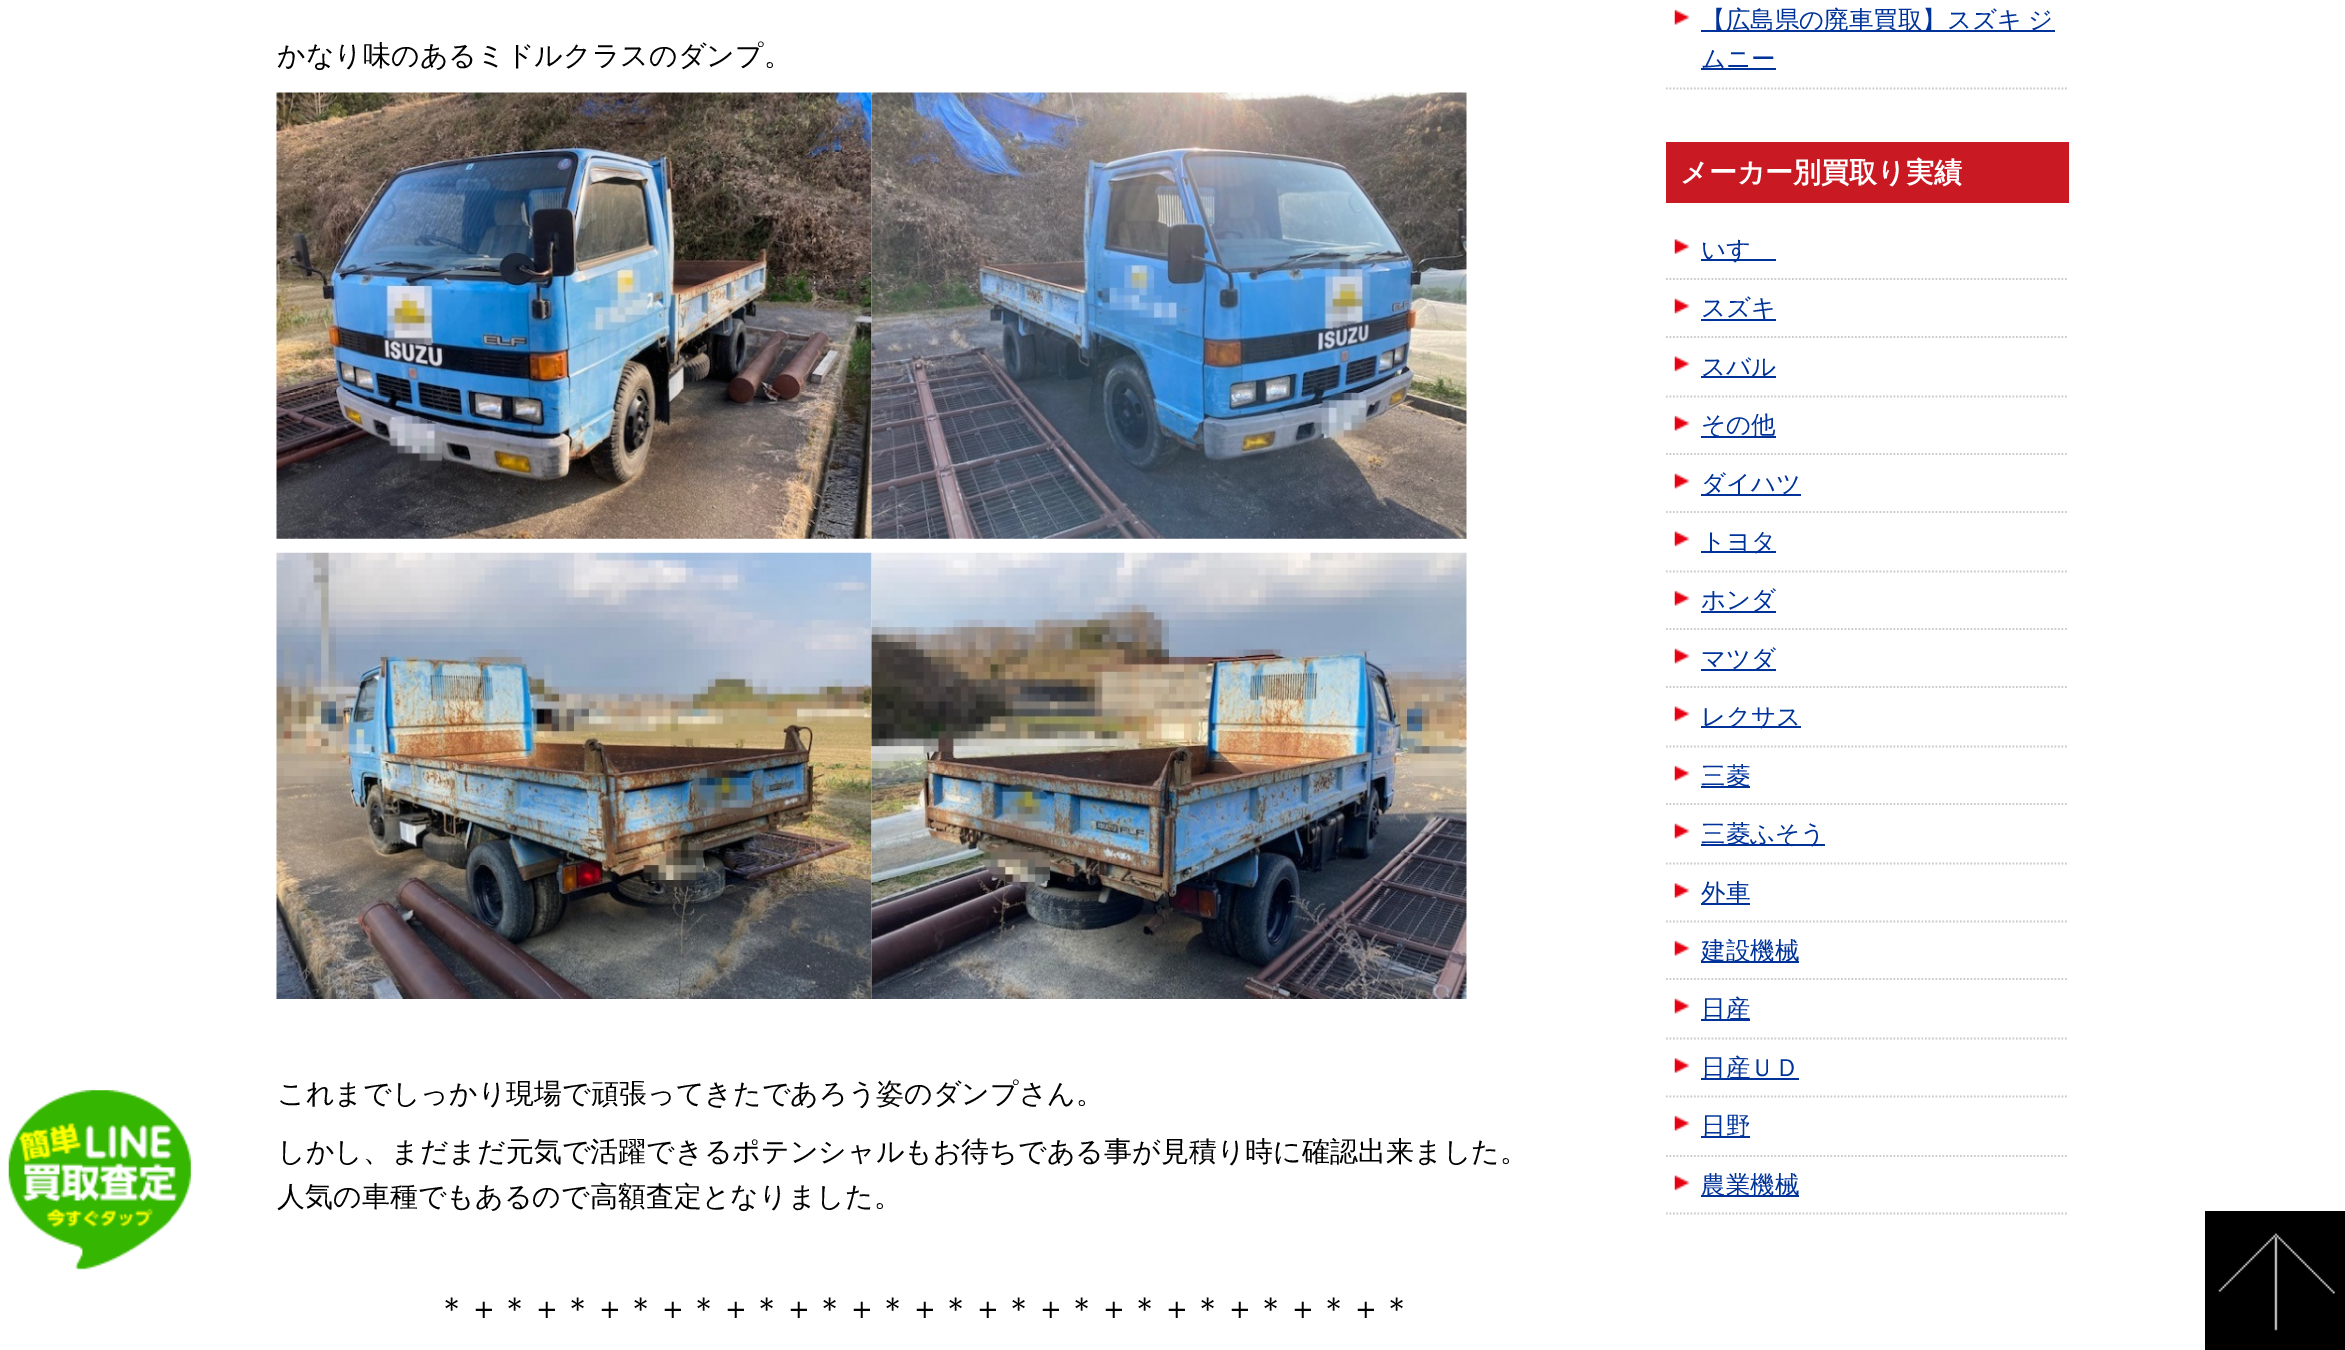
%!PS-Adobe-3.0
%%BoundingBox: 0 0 2345 1350
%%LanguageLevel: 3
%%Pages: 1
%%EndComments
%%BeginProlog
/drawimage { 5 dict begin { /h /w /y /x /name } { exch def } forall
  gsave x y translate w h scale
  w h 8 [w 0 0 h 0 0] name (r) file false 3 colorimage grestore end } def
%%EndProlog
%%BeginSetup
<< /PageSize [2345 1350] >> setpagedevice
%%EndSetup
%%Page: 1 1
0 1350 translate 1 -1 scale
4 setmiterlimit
1 setgray
0 0 2345 1350 rectfill
(images/1.raw) 8 1090 183 180 drawimage
(images/2.raw) 276 92 596 447 drawimage
(images/3.raw) 871 92 596 447 drawimage
(images/4.raw) 276 552 596 447 drawimage
(images/5.raw) 871 552 596 447 drawimage
0.8 setgray
1.8 setlinewidth
[1.75 1.75] 0 setdash
newpath 1666 88.5 moveto 2068.5 88.5 lineto stroke
(images/6.raw) 1674 9 16 16 drawimage
0 0.2 0.6 setrgbcolor
1701 30 354 2 rectfill
1701 68 75 2 rectfill
0.788 0.098 0.137 setrgbcolor
1666 142 403 61 rectfill
0.8 setgray
newpath 1666 279 moveto 2068.5 279 lineto stroke
(images/7.raw) 1674 239 16 15 drawimage
0 0.2 0.6 setrgbcolor
1701 259 75 2 rectfill
0.8 setgray
newpath 1666 337 moveto 2068.5 337 lineto stroke
(images/8.raw) 1674 298 16 16 drawimage
0 0.2 0.6 setrgbcolor
1701 319 75 2 rectfill
0.8 setgray
newpath 1666 396.5 moveto 2068.5 396.5 lineto stroke
(images/9.raw) 1674 356 16 16 drawimage
0 0.2 0.6 setrgbcolor
1701 376 75 2 rectfill
0.8 setgray
newpath 1666 454 moveto 2068.5 454 lineto stroke
(images/6.raw) 1674 415 16 16 drawimage
0 0.2 0.6 setrgbcolor
1701 436 75 2 rectfill
0.8 setgray
newpath 1666 512 moveto 2068.5 512 lineto stroke
(images/8.raw) 1674 473 16 16 drawimage
0 0.2 0.6 setrgbcolor
1701 494 100 2 rectfill
0.8 setgray
newpath 1666 571.5 moveto 2068.5 571.5 lineto stroke
(images/9.raw) 1674 531 16 16 drawimage
0 0.2 0.6 setrgbcolor
1701 551 75 2 rectfill
0.8 setgray
newpath 1666 629 moveto 2068.5 629 lineto stroke
(images/6.raw) 1674 590 16 16 drawimage
0 0.2 0.6 setrgbcolor
1701 611 75 2 rectfill
0.8 setgray
newpath 1666 687 moveto 2068.5 687 lineto stroke
(images/8.raw) 1674 648 16 16 drawimage
0 0.2 0.6 setrgbcolor
1701 669 75 2 rectfill
0.8 setgray
newpath 1666 746.5 moveto 2068.5 746.5 lineto stroke
(images/9.raw) 1674 706 16 16 drawimage
0 0.2 0.6 setrgbcolor
1701 726 100 2 rectfill
0.8 setgray
newpath 1666 804 moveto 2068.5 804 lineto stroke
(images/10.raw) 1674 765 16 16 drawimage
0 0.2 0.6 setrgbcolor
1701 786 49 2 rectfill
0.8 setgray
newpath 1666 863.5 moveto 2068.5 863.5 lineto stroke
(images/11.raw) 1674 823 16 16 drawimage
0 0.2 0.6 setrgbcolor
1701 844 124 2 rectfill
0.8 setgray
newpath 1666 921.5 moveto 2068.5 921.5 lineto stroke
(images/7.raw) 1674 883 16 15 drawimage
0 0.2 0.6 setrgbcolor
1701 903 49 2 rectfill
0.8 setgray
newpath 1666 979 moveto 2068.5 979 lineto stroke
(images/12.raw) 1674 940 16 16 drawimage
0 0.2 0.6 setrgbcolor
1701 961 98 2 rectfill
0.8 setgray
newpath 1666 1038.5 moveto 2068.5 1038.5 lineto stroke
(images/8.raw) 1674 998 16 16 drawimage
0 0.2 0.6 setrgbcolor
1701 1019 49 2 rectfill
0.8 setgray
newpath 1666 1096.5 moveto 2068.5 1096.5 lineto stroke
(images/7.raw) 1674 1058 16 15 drawimage
0 0.2 0.6 setrgbcolor
1701 1078 98 2 rectfill
0.8 setgray
newpath 1666 1156 moveto 2068.5 1156 lineto stroke
(images/6.raw) 1674 1115 16 16 drawimage
0 0.2 0.6 setrgbcolor
1701 1136 49 2 rectfill
0.8 setgray
newpath 1666 1213.5 moveto 2068.5 1213.5 lineto stroke
(images/9.raw) 1674 1175 16 16 drawimage
0 0.2 0.6 setrgbcolor
1701 1195 98 2 rectfill
(images/13.raw) 2205 1211 140 139 drawimage
/WenQuanYiZenHei-Medium [28 0 0 -28 0 0] selectfont
0 setgray
277 65 moveto (かなり味のあるミドルクラスのダンプ。) show
277 1103 moveto (これまでしっかり現場で頑張ってきたであろう姿のダンプさん。) show
277 1161 moveto (しかし、まだまだ元気で活躍できるポテンシャルもお待ちである事が見積り時に確認出来ました。) show
277 1206 moveto (人気の車種でもあるので高額査定となりました。) show
/WenQuanYiZenHei-Medium [31.5 0 0 -31.5 0 0] selectfont
436 1319 moveto (＊＋＊＋＊＋＊＋＊＋＊＋＊＋＊＋＊＋＊＋＊＋＊＋＊＋＊＋＊＋＊) show
/WenQuanYiZenHei-Medium [24.5 0 0 -24.5 0 0] selectfont
0 0.2 0.6 setrgbcolor
1701 28 moveto -1 0 32 (【広島県の廃車買取】スズキ ジ) widthshow
1701 67 moveto (ムニー) show
/WenQuanYiZenHei-Bold [28 0 0 -28 0 0] selectfont
1 setgray
1680 182 moveto (メーカー別買取り実績) show
/WenQuanYiZenHei-Medium [24.5 0 0 -24.5 0 0] selectfont
0 0.2 0.6 setrgbcolor
1701 258 moveto (いすゞ) show
1701 316 moveto (スズキ) show
1701 375 moveto (スバル) show
1701 433 moveto (その他) show
1701 492 moveto (ダイハツ) show
1701 550 moveto (トヨタ) show
1701 608 moveto (ホンダ) show
1701 667 moveto (マツダ) show
1701 725 moveto (レクサス) show
1701 784 moveto (三菱) show
1701 842 moveto (三菱ふそう) show
1701 901 moveto (外車) show
1701 959 moveto (建設機械) show
1701 1017 moveto (日産) show
1701 1076 moveto (日産ＵＤ) show
1701 1134 moveto (日野) show
1701 1193 moveto (農業機械) show
showpage
%%EOF
